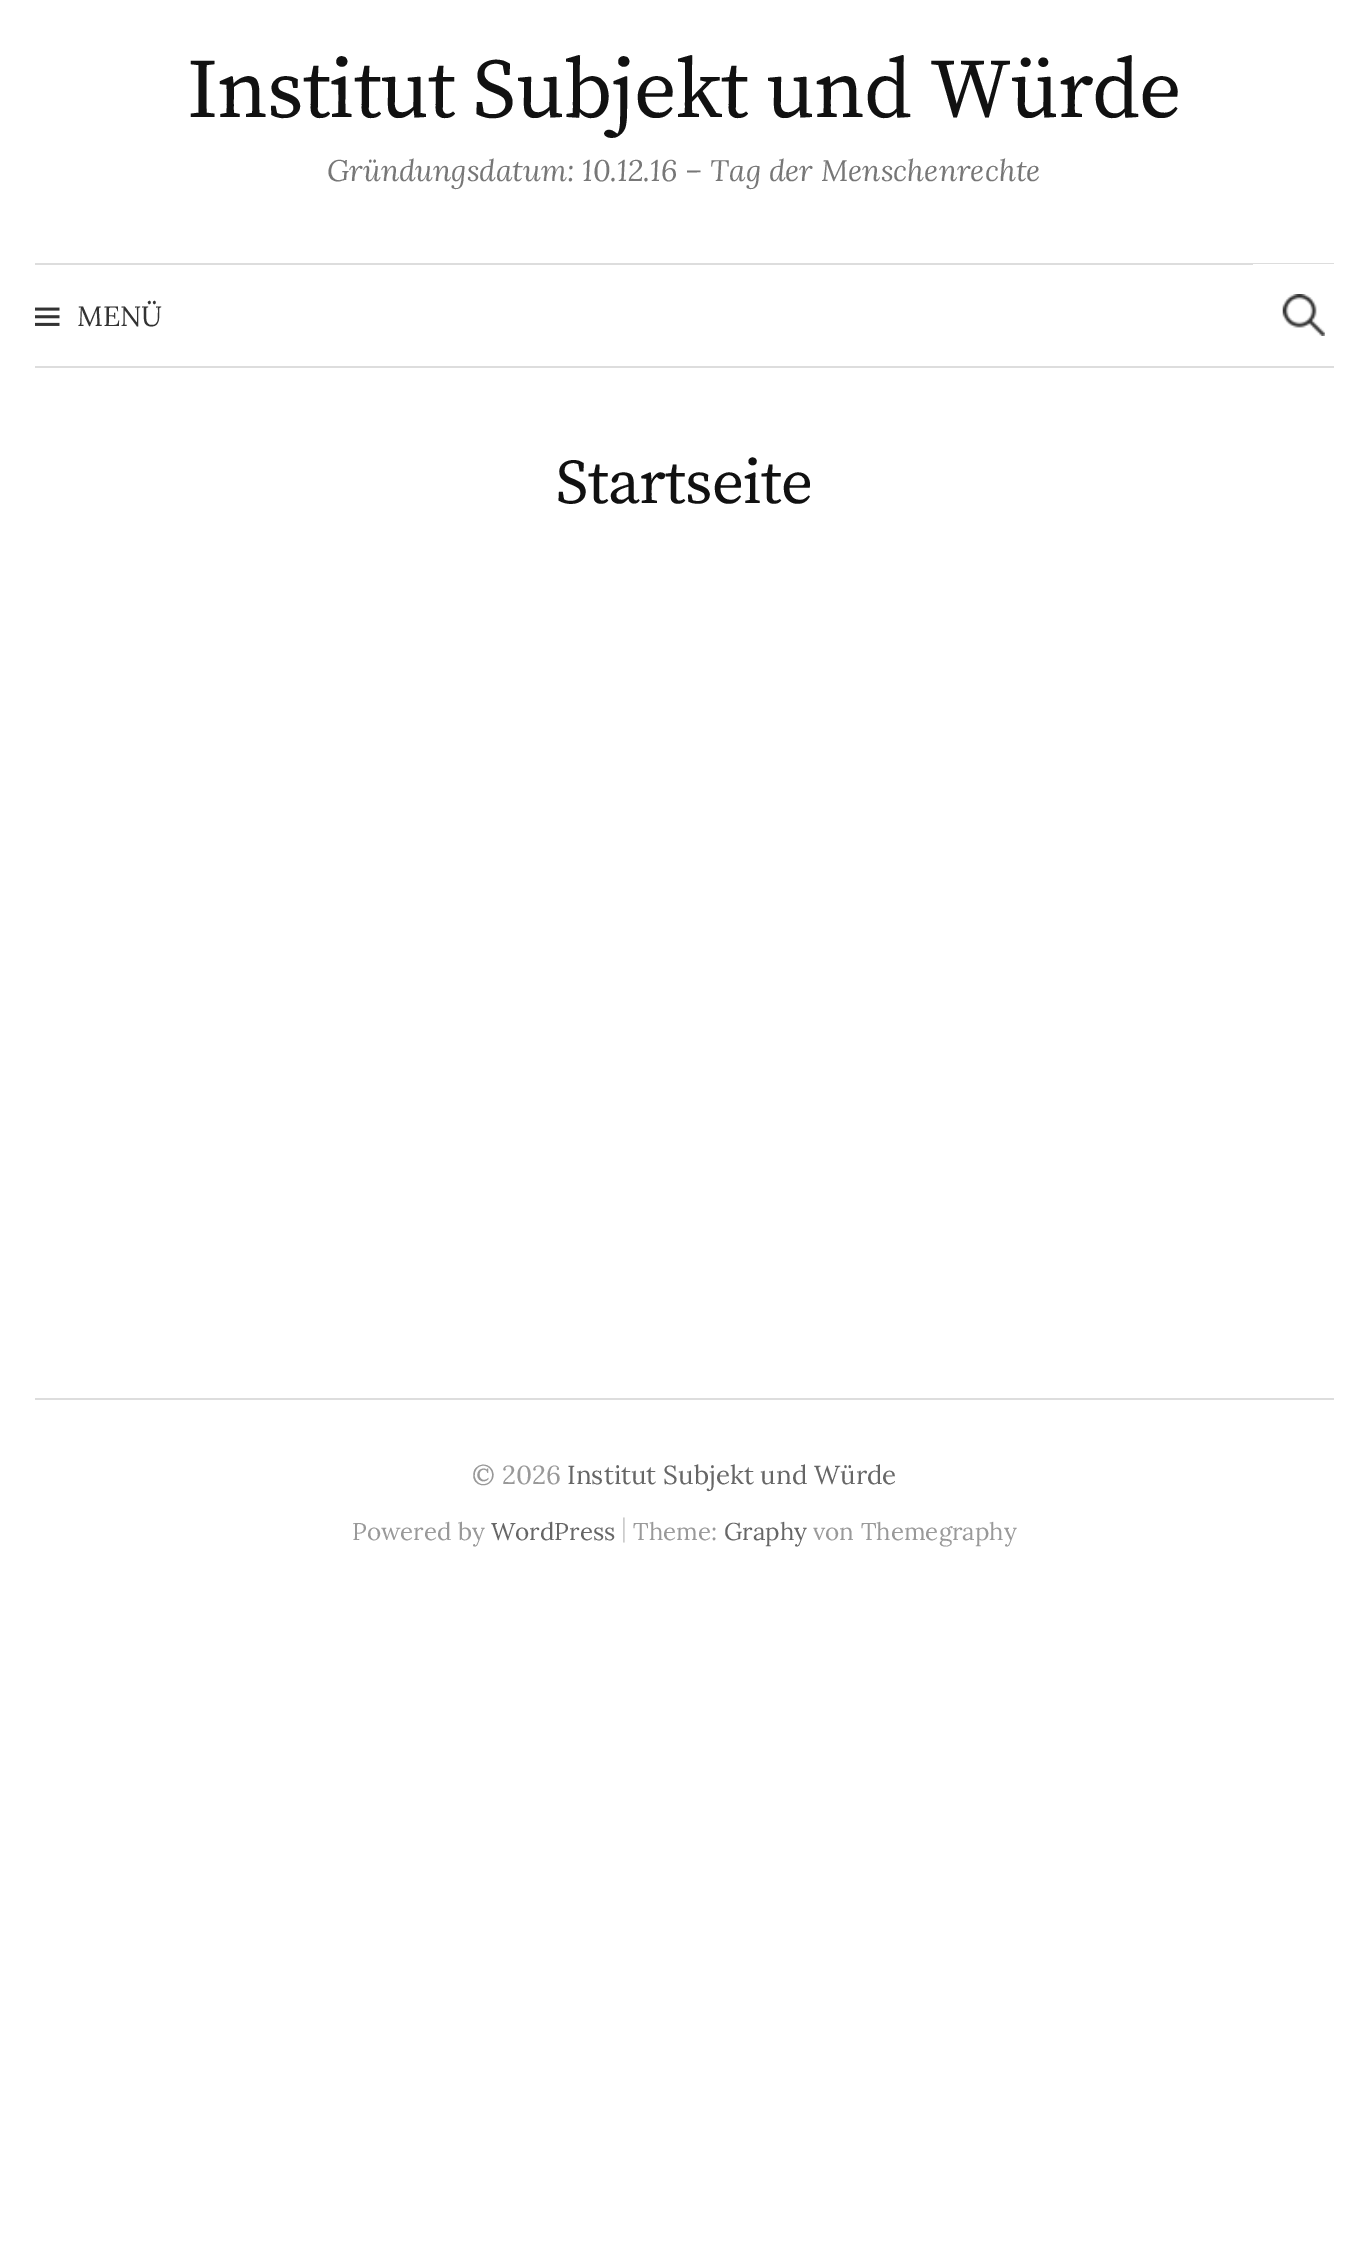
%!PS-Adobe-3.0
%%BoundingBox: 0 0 1367 2242
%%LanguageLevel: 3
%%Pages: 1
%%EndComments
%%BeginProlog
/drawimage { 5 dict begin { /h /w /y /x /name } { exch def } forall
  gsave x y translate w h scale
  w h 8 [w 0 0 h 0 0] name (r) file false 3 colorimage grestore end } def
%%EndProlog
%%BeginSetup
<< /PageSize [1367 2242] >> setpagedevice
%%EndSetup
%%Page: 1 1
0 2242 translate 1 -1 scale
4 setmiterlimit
1 setgray
0 0 1367 2242 rectfill
0.867 setgray
35 263 1299 2 rectfill
35 366 1299 2 rectfill
(images/1.raw) 35 307 25 19 drawimage
1 setgray
1253 264 81 1 rectfill
(images/2.raw) 1282 294 43 42 drawimage
0.867 setgray
35 1398 1299 2 rectfill
/SourceSerifPro-Regular [84 0 0 -84 0 0] selectfont
0.067 setgray
187 117 moveto -0.85 0 (Institut Subjekt und Würde) ashow
/Lora-Italic [29.75 0 0 -29.75 0 0] selectfont
0.467 setgray
327 181 moveto (Gründungsdatum: 10.12.16 – Tag der Menschenrechte) show
/Lora-Regular [28 0 0 -28 0 0] selectfont
0.2 setgray
77 326 moveto (MENÜ) show
/SourceSerifPro-Regular [63 0 0 -63 0 0] selectfont
0.067 setgray
556 503 moveto -0.6 0 (Startseite) ashow
/Lora-Regular [26 0 0 -26 0 0] selectfont
0.6 setgray
472 1484 moveto (© 2026) show
0.4 setgray
567 1484 moveto (Institut Subjekt und Würde) show
/Lora-Regular [24.25 0 0 -24.25 0 0] selectfont
0.6 setgray
352 1540 moveto (Powered by) show
0.4 setgray
491 1540 moveto (WordPress) show
0.8 setgray
621 1536 moveto (|) show
0.6 setgray
633 1540 moveto (Theme:) show
0.4 setgray
724 1540 moveto (Graphy) show
0.6 setgray
813 1540 moveto (von Themegraphy) show
showpage
%%EOF
